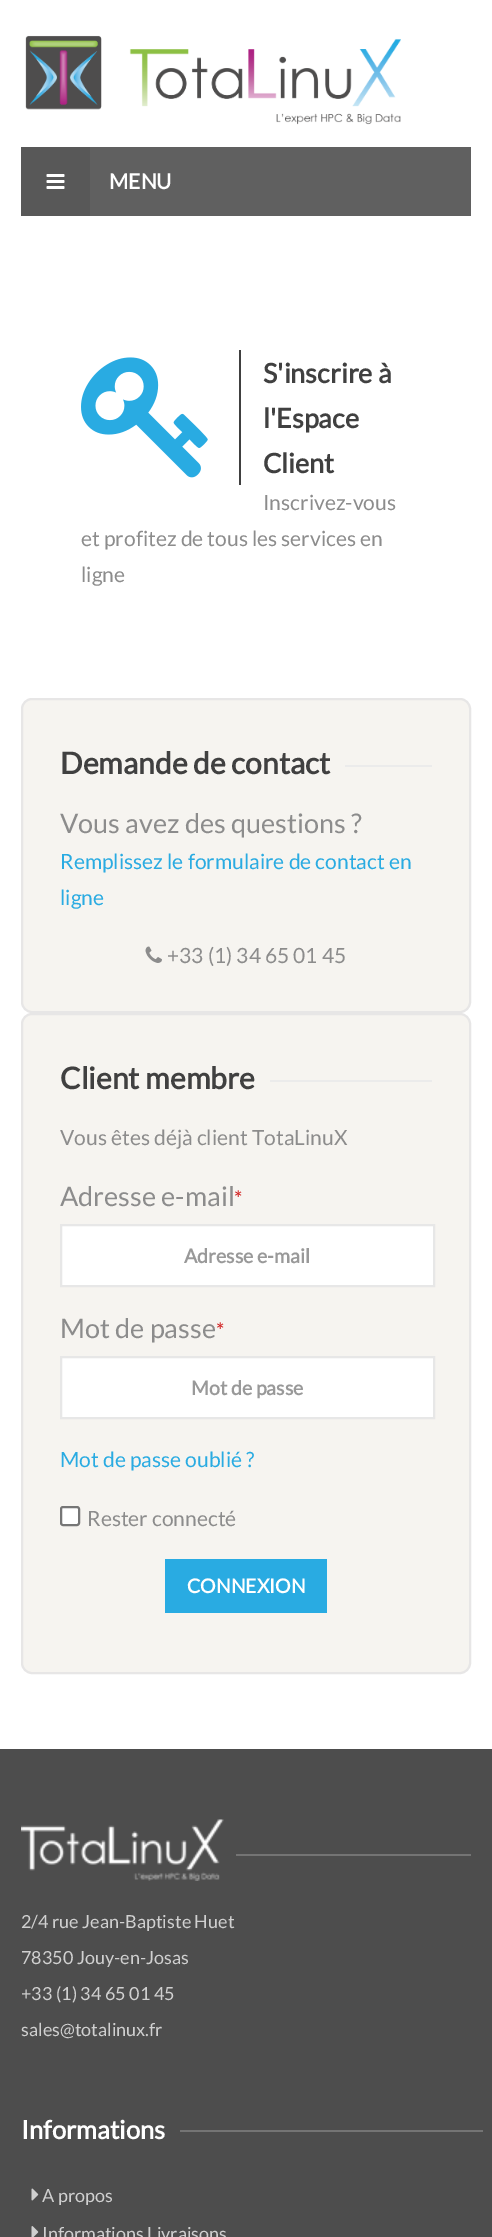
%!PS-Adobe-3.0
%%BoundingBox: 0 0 492 2237
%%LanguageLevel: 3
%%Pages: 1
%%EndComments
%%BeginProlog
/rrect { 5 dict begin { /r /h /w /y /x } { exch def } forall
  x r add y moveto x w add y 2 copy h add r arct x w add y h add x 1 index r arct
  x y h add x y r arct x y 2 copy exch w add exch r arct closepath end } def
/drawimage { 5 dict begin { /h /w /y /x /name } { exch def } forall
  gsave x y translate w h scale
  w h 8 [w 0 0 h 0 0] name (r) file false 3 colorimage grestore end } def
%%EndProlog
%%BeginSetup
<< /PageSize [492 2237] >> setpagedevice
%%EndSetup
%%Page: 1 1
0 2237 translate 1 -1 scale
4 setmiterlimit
1 setgray
0 0 492 2237 rectfill
(images/1.raw) 25 35 376 90 drawimage
0.376 setgray
90 147 381 69 rectfill
0.345 setgray
21 147 69 69 rectfill
(images/2.raw) 46 174 19 15 drawimage
0.251 setgray
239 350 2 135 rectfill
(images/3.raw) 81 357 127 121 drawimage
0.965 0.957 0.941 setrgbcolor
22 699 448 313 10 rrect gsave fill grestore
0.906 0.902 0.902 setrgbcolor
2 setlinewidth
stroke
0.922 setgray
345 765 87 2 rectfill
(images/4.raw) 145 946 17 17 drawimage
0.965 0.957 0.941 setrgbcolor
22 1014 448 659 10 rrect gsave fill grestore
0.906 0.902 0.902 setrgbcolor
stroke
0.922 setgray
270 1080 162 2 rectfill
1 setgray
newpath 61 1225 moveto 434 1225 lineto 434 1286 lineto 61 1286 lineto closepath gsave fill grestore
0.906 setgray
stroke
1 setgray
newpath 61 1357 moveto 434 1357 lineto 434 1418 lineto 61 1418 lineto closepath gsave fill grestore
0.906 setgray
stroke
1 setgray
61 1507 18 18 2 rrect gsave fill grestore
0.463 setgray
stroke
0.161 0.671 0.886 setrgbcolor
165 1559 162 54 rectfill
0.302 setgray
0 1749 492 488 rectfill
(images/5.raw) 21 1819 203 62 drawimage
0.455 setgray
236 1854 235 2 rectfill
180 2130 303 2 rectfill
(images/6.raw) 31 2188 8 13 drawimage
(images/7.raw) 31 2226 8 11 drawimage
/Lato-Bold [21 0 0 -21 0 0] selectfont
1 setgray
109 189 moveto (MENU) show
/Lato-Bold [27 0 0 -27 0 0] selectfont
0.251 setgray
263 383 moveto (S'inscrire à) show
263 428 moveto (l'Espace) show
263 473 moveto (Client) show
/Lato-Regular [21 0 0 -21 0 0] selectfont
0.549 setgray
263 510 moveto (Inscrivez-vous) show
81 546 moveto (et profitez de tous les services en) show
81 582 moveto (ligne) show
/Lato-Bold [30 0 0 -30 0 0] selectfont
0.251 setgray
60 774 moveto (Demande de contact) show
/Lato-Regular [27 0 0 -27 0 0] selectfont
0.549 setgray
60 833 moveto (Vous avez des questions ?) show
/Lato-Regular [21 0 0 -21 0 0] selectfont
0.161 0.671 0.886 setrgbcolor
60 869 moveto (Remplissez le formulaire de contact en) show
60 905 moveto (ligne) show
0.549 setgray
167 963 moveto (+33 \(1\) 34 65 01 45) show
/Lato-Bold [30 0 0 -30 0 0] selectfont
0.251 setgray
60 1089 moveto (Client membre) show
/Lato-Regular [21 0 0 -21 0 0] selectfont
0.549 setgray
60 1145 moveto (Vous êtes déjà client TotaLinuX) show
/Lato-Regular [27 0 0 -27 0 0] selectfont
60 1206 moveto (Adresse e-mail) show
/Lato-Regular [21 0 0 -21 0 0] selectfont
0.82 0.11 0.11 setrgbcolor
234 1206 moveto (*) show
/Lato-Bold [19.5 0 0 -19.5 0 0] selectfont
0.6 setgray
184 1263 moveto (Adresse e-mail) show
/Lato-Regular [27 0 0 -27 0 0] selectfont
0.549 setgray
60 1338 moveto (Mot de passe) show
/Lato-Regular [21 0 0 -21 0 0] selectfont
0.82 0.11 0.11 setrgbcolor
216 1338 moveto (*) show
/Lato-Bold [19.5 0 0 -19.5 0 0] selectfont
0.6 setgray
191 1395 moveto (Mot de passe) show
/Lato-Regular [21 0 0 -21 0 0] selectfont
0.161 0.671 0.886 setrgbcolor
60 1467 moveto (Mot de passe oublié ?) show
0.549 setgray
87 1526 moveto (Rester connecté) show
/Lato-Bold [19.5 0 0 -19.5 0 0] selectfont
1 setgray
187 1593 moveto (CONNEXION) show
/Lato-Regular [18 0 0 -18 0 0] selectfont
0.816 setgray
21 1928 moveto (2/4 rue Jean-Baptiste Huet) show
21 1964 moveto (78350 Jouy-en-Josas) show
21 2000 moveto (+33 \(1\) 34 65 01 45) show
21 2036 moveto (sales@totalinux.fr) show
/Lato-Bold [25.5 0 0 -25.5 0 0] selectfont
1 setgray
21 2139 moveto (Informations) show
/Lato-Regular [18 0 0 -18 0 0] selectfont
0.816 setgray
42 2202 moveto (A propos) show
42 2240 moveto (Informations Livraisons) show
showpage
%%EOF
